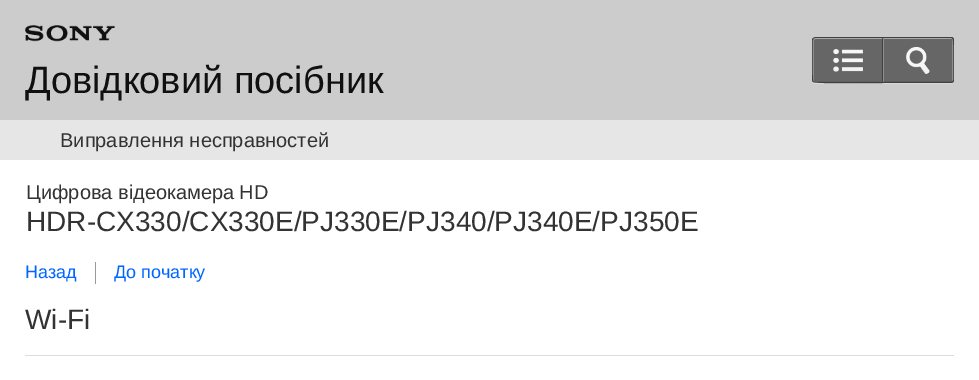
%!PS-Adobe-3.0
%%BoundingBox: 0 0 979 380
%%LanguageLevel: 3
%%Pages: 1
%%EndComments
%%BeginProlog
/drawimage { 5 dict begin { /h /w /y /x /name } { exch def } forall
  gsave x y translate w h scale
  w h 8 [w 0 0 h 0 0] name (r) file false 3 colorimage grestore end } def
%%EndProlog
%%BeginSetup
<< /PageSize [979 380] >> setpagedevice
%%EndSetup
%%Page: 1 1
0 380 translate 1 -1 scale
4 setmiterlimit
1 setgray
0 0 979 380 rectfill
0.8 setgray
0 0 979 120 rectfill
(images/1.raw) 25 25 90 17 drawimage
0.851 setgray
newpath 812 80 moveto 812 81 lineto 812 83 813 84 815 84 curveto 883 84 lineto 883 83 lineto 815 83 lineto 813 83 812 82 812 80 curveto closepath fill
0.251 setgray
newpath 815 37 moveto 883 37 lineto 883 83 lineto 876 83 815 84 813 82 curveto 812 81 lineto 812 39 lineto 813 38 lineto closepath 815 38 moveto 883 38 lineto 883 82 lineto 815 82 lineto 814 82 813 81 813 80 curveto 813 40 lineto 813 39 814 38 815 38 curveto closepath eofill
0.4 setgray
newpath 815 38 moveto 883 38 lineto 883 82 lineto 815 82 lineto 814 82 813 81 813 80 curveto 813 40 lineto 813 39 814 38 815 38 curveto closepath fill
0.659 setgray
newpath 815 38 moveto 814 39 lineto 814 40 lineto 815 39 lineto 882 39 lineto 883 38 lineto closepath fill
0.251 setgray
newpath 883 38 moveto 882 39 lineto 882 81 lineto 883 82 lineto closepath fill
0.361 setgray
newpath 883 82 moveto 882 81 lineto 876 81 816 82 814 81 curveto 815 82 lineto closepath fill
0.553 setgray
newpath 813 40 moveto 813 45 812 80 814 81 curveto 814 79 lineto 814 40 lineto 814 39 lineto closepath fill
(images/2.raw) 833 49 30 23 drawimage
0.851 setgray
newpath 883 83 moveto 883 84 lineto 951 84 lineto 953 84 954 83 954 81 curveto 954 80 lineto 954 82 953 83 951 83 curveto closepath fill
0.251 setgray
newpath 883 37 moveto 951 37 lineto 953 37 954 38 954 40 curveto 954 80 lineto 954 82 953 83 951 83 curveto 883 83 lineto closepath 883 38 moveto 951 38 lineto 952 38 953 39 953 40 curveto 953 80 lineto 953 81 952 82 951 82 curveto 883 82 lineto closepath eofill
0.4 setgray
newpath 883 38 moveto 951 38 lineto 952 38 953 39 953 40 curveto 953 80 lineto 953 81 952 82 951 82 curveto 883 82 lineto closepath fill
0.659 setgray
newpath 883 38 moveto 884 39 lineto 952 39 lineto 951 38 lineto closepath fill
0.553 setgray
newpath 953 80 moveto 953 75 954 40 952 39 curveto 952 81 lineto closepath fill
0.361 setgray
newpath 951 82 moveto 952 81 lineto 884 81 lineto 883 82 lineto closepath fill
0.561 setgray
newpath 883 38 moveto 883 82 lineto 884 81 lineto 884 39 lineto closepath fill
(images/3.raw) 906 47 24 27 drawimage
0.902 setgray
0 120 979 40 rectfill
0.6 setgray
95 262 1 22 rectfill
0.867 setgray
25 355 929 1 rectfill
/LiberationSans-Regular [38 0 0 -38 0 0] selectfont
0.063 setgray
25 93 moveto (Довідковий посібник) show
/LiberationSans-Regular [20 0 0 -20 0 0] selectfont
0.2 setgray
60 147 moveto (Виправлення несправностей) show
26 199 moveto (Цифрова відеокамера HD) show
/LiberationSans-Regular [28 0 0 -28 0 0] selectfont
26 231 moveto (HDR-CX330/CX330E/PJ330E/PJ340/PJ340E/PJ350E) show
/LiberationSans-Regular [18 0 0 -18 0 0] selectfont
0 0.4 1 setrgbcolor
25 278 moveto (Назад) show
114 278 moveto (До початку) show
/LiberationSans-Regular [28 0 0 -28 0 0] selectfont
0.2 setgray
25 329 moveto (Wi-Fi) show
showpage
%%EOF
